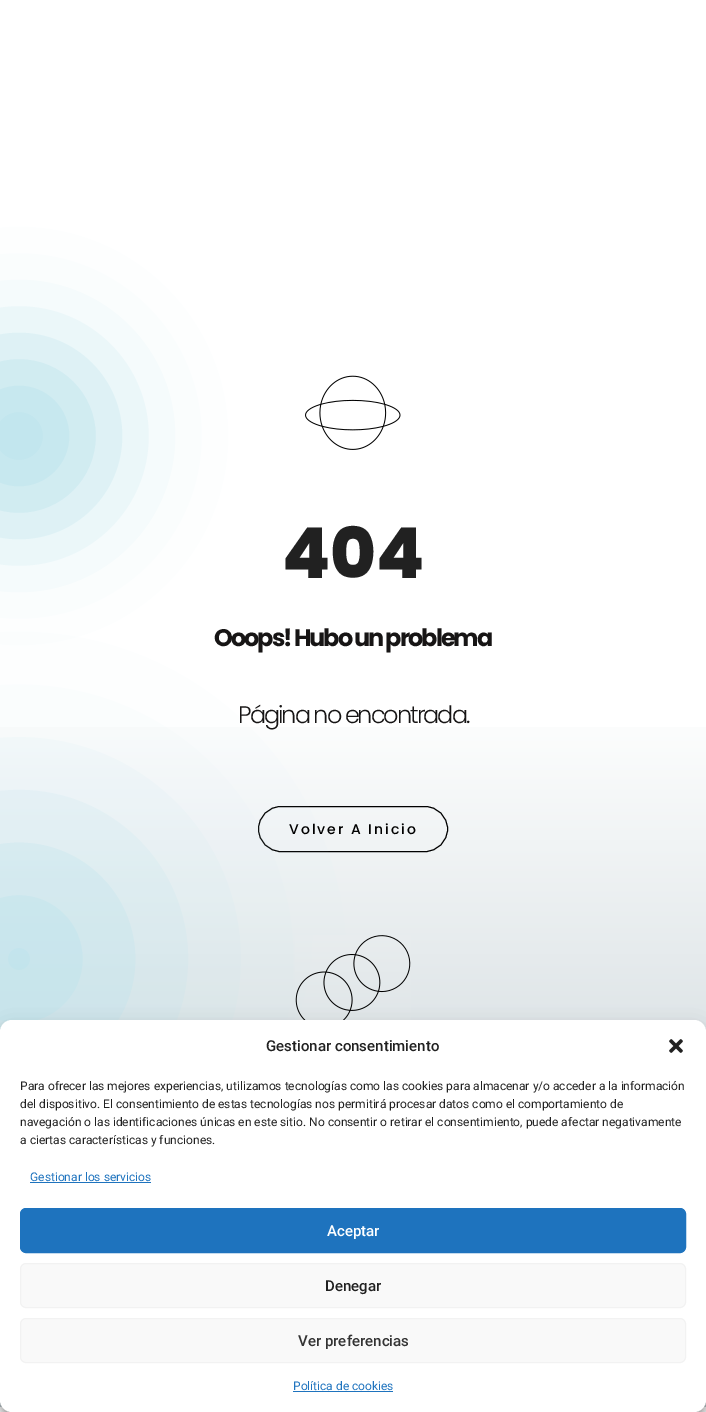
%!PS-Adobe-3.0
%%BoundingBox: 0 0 706 1412
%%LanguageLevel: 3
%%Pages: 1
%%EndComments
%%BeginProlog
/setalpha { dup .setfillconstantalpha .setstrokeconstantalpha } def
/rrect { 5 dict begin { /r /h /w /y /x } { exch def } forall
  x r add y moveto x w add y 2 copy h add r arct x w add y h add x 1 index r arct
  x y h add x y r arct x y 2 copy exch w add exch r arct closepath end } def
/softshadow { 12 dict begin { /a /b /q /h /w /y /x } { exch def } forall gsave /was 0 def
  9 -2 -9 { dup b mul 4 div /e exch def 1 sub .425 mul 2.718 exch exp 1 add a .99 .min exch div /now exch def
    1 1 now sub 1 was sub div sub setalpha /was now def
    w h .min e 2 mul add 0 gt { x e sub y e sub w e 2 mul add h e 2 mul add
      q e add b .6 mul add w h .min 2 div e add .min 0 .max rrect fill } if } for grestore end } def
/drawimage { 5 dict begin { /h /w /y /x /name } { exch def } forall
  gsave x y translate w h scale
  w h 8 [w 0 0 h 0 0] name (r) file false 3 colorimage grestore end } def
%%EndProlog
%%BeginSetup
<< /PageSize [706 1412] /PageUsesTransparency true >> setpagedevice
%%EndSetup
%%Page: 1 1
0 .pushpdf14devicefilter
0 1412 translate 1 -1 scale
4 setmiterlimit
1 setgray
0 0 706 1412 rectfill
gsave newpath 0 727 moveto 706 727 lineto 706 1407 lineto 0 1407 lineto closepath clip newpath
<< /ShadingType 2 /ColorSpace /DeviceRGB /Coords [353 -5 353 1407] /Extend [true true] /Function << /FunctionType 3 /Domain [0 1] /Functions [<< /FunctionType 2 /Domain [0 1] /C0 [1 1 1] /C1 [1 1 1] /N 1 >> << /FunctionType 2 /Domain [0 1] /C0 [1 1 1] /C1 [0.729 0.78 0.8] /N 1 >>] /Bounds [0.5] /Encode [0 1 0 1] >> >> shfill grestore
0.737 0.89 0.925 setrgbcolor
-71 346 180 180 90 53 1 softshadow
(images/1.raw) 305 375 96 75 drawimage
0 setgray
258.5 806.5 189 45 22.5 rrect stroke
0.737 0.89 0.925 setrgbcolor
-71 869 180 180 90 105.5 1 softshadow
(images/2.raw) 295 935 116 85 drawimage
0 setgray
0 1026 706 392 12 3 0.23 softshadow
0 1030 706 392 12 10 0.19 softshadow
1 setgray
0 1020 706 392 12 rrect fill
(images/3.raw) 669 1039 14 14 drawimage
0.118 0.451 0.745 setrgbcolor
30 1182 121 1 rectfill
20.5 1208.5 665 44 5.5 rrect gsave fill grestore
stroke
0.976 setgray
20.5 1263.5 665 44 5.5 rrect gsave fill grestore
0.949 setgray
stroke
0.976 setgray
20.5 1318.5 665 44 5.5 rrect gsave fill grestore
0.949 setgray
stroke
0.118 0.451 0.745 setrgbcolor
293 1391 100 1 rectfill
/Poppins-ExtraBold [70 0 0 -70 0 0] selectfont
0.129 setgray
282 578 moveto (404) show
/Poppins-Bold [24 0 0 -24 0 0] selectfont
0.09 0.082 0.082 setrgbcolor
214 646 moveto -2 0 (Ooops! Hubo un problema) ashow
/Poppins-Light [24 0 0 -24 0 0] selectfont
238 723 moveto -2 0 (Página no encontrada.) ashow
/Poppins-Medium [14 0 0 -14 0 0] selectfont
0 setgray
289 834 moveto 2 0 (Volver A Inicio) ashow
/Roboto-Medium [15 0 0 -15 0 0] selectfont
0.129 setgray
266 1051 moveto (Gestionar consentimiento) show
/Roboto-Regular [12 0 0 -12 0 0] selectfont
20 1090 moveto (Para ofrecer las mejores experiencias, utilizamos tecnologías como las cookies para almacenar y/o acceder a la información) show
20 1108 moveto (del dispositivo. El consentimiento de estas tecnologías nos permitirá procesar datos como el comportamiento de) show
20 1126 moveto (navegación o las identificaciones únicas en este sitio. No consentir o retirar el consentimiento, puede afectar negativamente) show
20 1144 moveto (a ciertas características y funciones.) show
0.118 0.451 0.745 setrgbcolor
30 1181 moveto (Gestionar los servicios) show
/Roboto-Medium [15 0 0 -15 0 0] selectfont
1 setgray
327 1236 moveto (Aceptar) show
0.129 setgray
325 1291 moveto (Denegar) show
0.2 setgray
298 1346 moveto (Ver preferencias) show
/Roboto-Regular [12 0 0 -12 0 0] selectfont
0.118 0.451 0.745 setrgbcolor
293 1390 moveto (Política de cookies) show
.poppdf14devicefilter showpage
%%EOF
